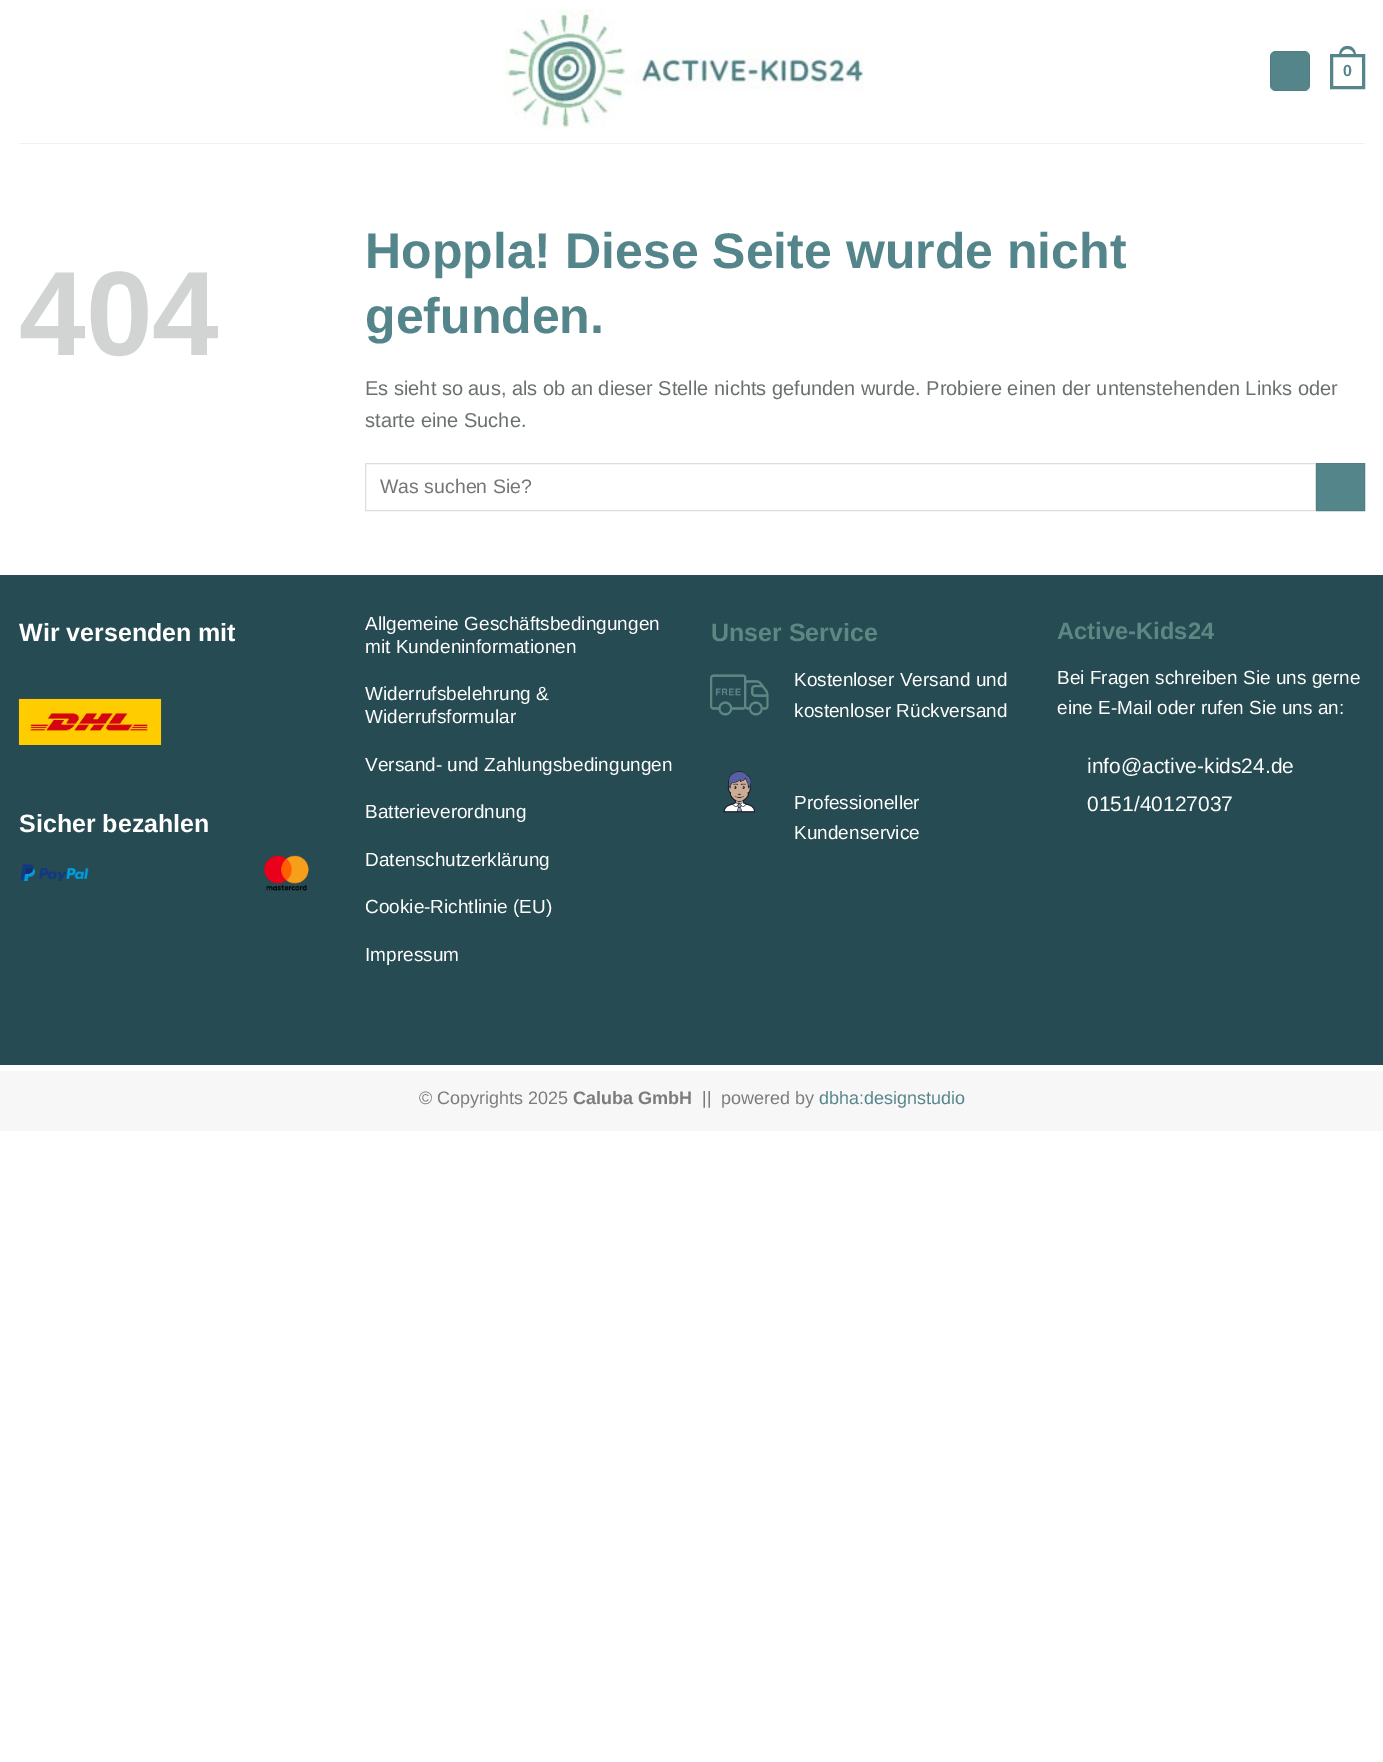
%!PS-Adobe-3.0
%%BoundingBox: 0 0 1383 1762
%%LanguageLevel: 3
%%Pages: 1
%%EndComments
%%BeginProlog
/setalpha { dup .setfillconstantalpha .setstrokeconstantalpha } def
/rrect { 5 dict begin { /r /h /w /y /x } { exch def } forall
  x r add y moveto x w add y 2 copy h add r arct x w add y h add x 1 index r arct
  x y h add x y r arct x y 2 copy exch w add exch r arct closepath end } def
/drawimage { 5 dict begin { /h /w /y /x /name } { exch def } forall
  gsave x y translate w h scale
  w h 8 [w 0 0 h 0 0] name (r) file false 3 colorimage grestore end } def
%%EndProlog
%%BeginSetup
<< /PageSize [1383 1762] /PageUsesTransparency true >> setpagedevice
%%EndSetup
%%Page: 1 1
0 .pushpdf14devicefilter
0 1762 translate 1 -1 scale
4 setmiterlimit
1 setgray
0 0 1383 1762 rectfill
(images/1.raw) 505 9 359 120 drawimage
0.329 0.522 0.541 setrgbcolor
1270 51 40 40 6 rrect fill
0.05 setalpha
0 setgray
1270.5 51.5 39 39 rectstroke
1 setalpha
0.329 0.522 0.541 setrgbcolor
3 setlinewidth
1331.5 55.5 32 32 rectstroke
newpath 1347.5 46 moveto 1353.5 46 1356 51 1356 56 curveto 1339 56 lineto 1339 51 1341.5 46 1347.5 46 curveto closepath 1347.5 49 moveto 1352 49 1354 52.5 1354 56 curveto 1341 56 lineto 1341 52.5 1343 49 1347.5 49 curveto closepath eofill
0.941 0.945 0.945 setrgbcolor
19 143 1346 1 rectfill
0.867 setgray
1 setlinewidth
365.5 463.5 950 47 rectstroke
0.329 0.522 0.541 setrgbcolor
newpath 1316.5 463.5 moveto 1364.5 463.5 lineto 1364.5 510.5 lineto 1316.5 510.5 lineto closepath gsave fill grestore
0.314 0.494 0.514 setrgbcolor
stroke
0.149 0.294 0.322 setrgbcolor
0 575 1383 490 rectfill
(images/2.raw) 18 698 144 47 drawimage
(images/3.raw) 20 864 69 17 drawimage
(images/4.raw) 264 855 45 36 drawimage
(images/5.raw) 710 674 59 42 drawimage
(images/6.raw) 723 771 32 42 drawimage
0.969 setgray
0 1071 1383 60 rectfill
/LiberationSans-Bold [16 0 0 -16 0 0] selectfont
0.329 0.522 0.541 setrgbcolor
1343 76 moveto (0) show
/LiberationSans-Bold [120 0 0 -120 0 0] selectfont
0.824 0.831 0.831 setrgbcolor
19 355 moveto (404) show
/LiberationSans-Bold [50 0 0 -50 0 0] selectfont
0.329 0.522 0.541 setrgbcolor
365 268 moveto (Hoppla! Diese Seite wurde nicht) show
365 333 moveto (gefunden.) show
/LiberationSans-Regular [20 0 0 -20 0 0] selectfont
0.416 0.439 0.439 setrgbcolor
365 395 moveto (Es sieht so aus, als ob an dieser Stelle nichts gefunden wurde. Probiere einen der untenstehenden Links oder) show
365 427 moveto (starte eine Suche.) show
/LiberationSans-Regular [19.5 0 0 -19.5 0 0] selectfont
0.459 setgray
380 493 moveto (Was suchen Sie?) show
/LiberationSans-Bold [25 0 0 -25 0 0] selectfont
1 setgray
19 641 moveto (Wir versenden mit) show
19 832 moveto (Sicher bezahlen) show
/LiberationSans-Regular [19 0 0 -19 0 0] selectfont
365 630 moveto (Allgemeine Geschäftsbedingungen) show
365 653 moveto (mit Kundeninformationen) show
365 700 moveto (Widerrufsbelehrung &) show
365 723 moveto (Widerrufsformular) show
365 771 moveto (Versand- und Zahlungsbedingungen) show
365 818 moveto (Batterieverordnung) show
365 866 moveto (Datenschutzerklärung) show
365 913 moveto (Cookie-Richtlinie \(EU\)) show
365 961 moveto (Impressum) show
/LiberationSans-Bold [25 0 0 -25 0 0] selectfont
0.365 0.529 0.514 setrgbcolor
711 641 moveto (Unser Service) show
/LiberationSans-Regular [19 0 0 -19 0 0] selectfont
1 setgray
794 686 moveto (Kostenloser Versand und) show
794 717 moveto (kostenloser Rückversand) show
794 809 moveto (Professioneller) show
794 839 moveto (Kundenservice) show
/LiberationSans-Bold [23.75 0 0 -23.75 0 0] selectfont
0.365 0.529 0.514 setrgbcolor
1057 639 moveto (Active-Kids24) show
/LiberationSans-Regular [19 0 0 -19 0 0] selectfont
1 setgray
1057 684 moveto (Bei Fragen schreiben Sie uns gerne) show
1057 714 moveto (eine E-Mail oder rufen Sie uns an:) show
/LiberationSans-Regular [21 0 0 -21 0 0] selectfont
1087 773 moveto (info@active-kids24.de) show
1087 811 moveto (0151/40127037) show
/LiberationSans-Regular [18 0 0 -18 0 0] selectfont
0.486 setgray
419 1104 moveto (© Copyrights 2025) show
/LiberationSans-Bold [18 0 0 -18 0 0] selectfont
573 1104 moveto (Caluba GmbH) show
/LiberationSans-Regular [18 0 0 -18 0 0] selectfont
702 1104 moveto (||  powered by) show
0.329 0.522 0.541 setrgbcolor
819 1104 moveto (dbha:designstudio) show
.poppdf14devicefilter showpage
%%EOF
